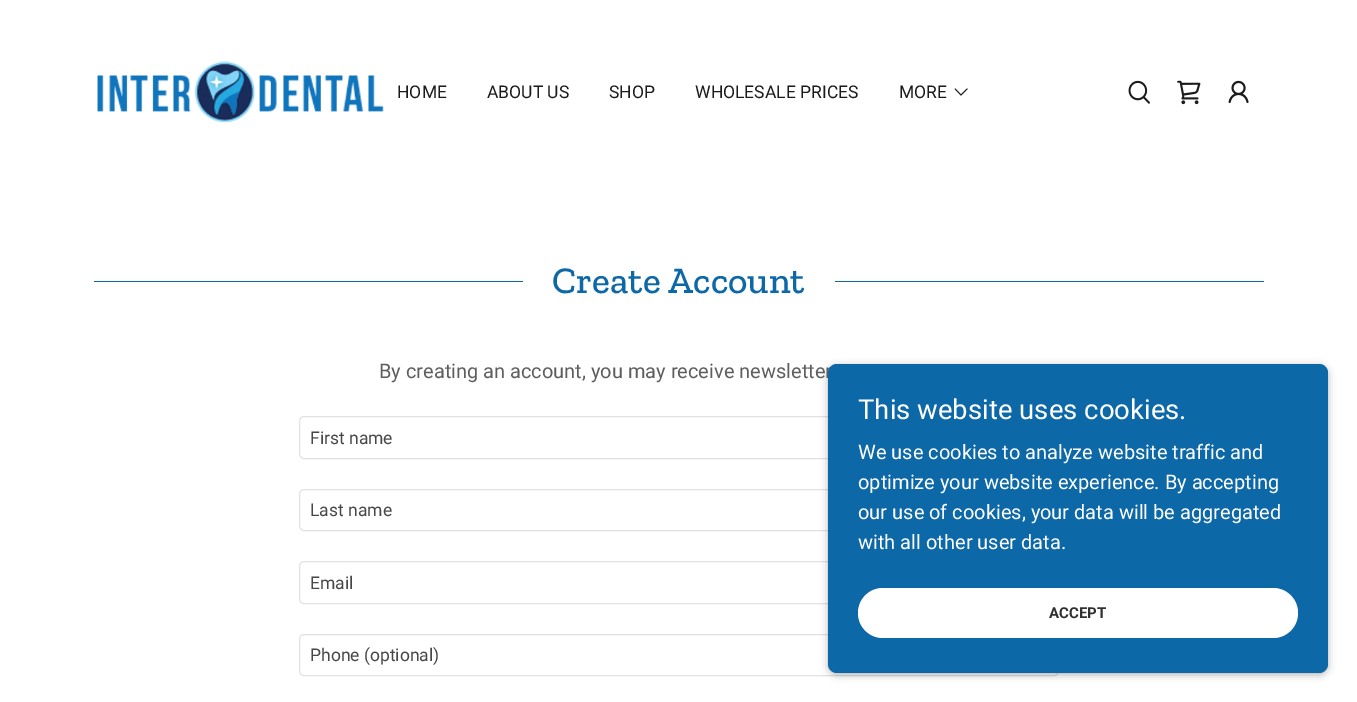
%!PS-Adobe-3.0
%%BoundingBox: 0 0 1357 702
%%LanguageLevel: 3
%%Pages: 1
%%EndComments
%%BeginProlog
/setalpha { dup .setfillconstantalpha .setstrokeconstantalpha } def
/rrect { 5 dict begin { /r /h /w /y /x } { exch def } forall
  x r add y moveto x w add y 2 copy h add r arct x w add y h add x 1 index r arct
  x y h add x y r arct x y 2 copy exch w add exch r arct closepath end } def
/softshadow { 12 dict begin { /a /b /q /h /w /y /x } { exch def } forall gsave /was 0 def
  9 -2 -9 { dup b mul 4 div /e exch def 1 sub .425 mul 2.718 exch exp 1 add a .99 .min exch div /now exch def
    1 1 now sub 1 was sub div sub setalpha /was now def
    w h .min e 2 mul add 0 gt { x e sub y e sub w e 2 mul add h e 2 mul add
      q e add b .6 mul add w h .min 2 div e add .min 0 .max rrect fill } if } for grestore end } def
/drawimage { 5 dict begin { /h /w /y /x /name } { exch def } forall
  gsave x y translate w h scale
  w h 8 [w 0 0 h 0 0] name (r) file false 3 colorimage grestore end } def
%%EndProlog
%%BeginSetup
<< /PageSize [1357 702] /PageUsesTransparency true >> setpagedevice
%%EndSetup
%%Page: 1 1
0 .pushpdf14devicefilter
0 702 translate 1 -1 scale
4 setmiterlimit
1 setgray
0 0 1357 702 rectfill
(images/1.raw) 97 61 287 62 drawimage
(images/2.raw) 954 88 14 8 drawimage
(images/3.raw) 1128 80 22 24 drawimage
(images/4.raw) 1177 80 24 25 drawimage
(images/5.raw) 1228 80 21 24 drawimage
0.051 0.408 0.655 setrgbcolor
94 281 429 1 rectfill
835 281 429 1 rectfill
0.886 setgray
299.5 416.5 759 42 4.5 rrect stroke
299.5 489.5 759 41 4.5 rrect stroke
299.5 561.5 759 42 4.5 rrect stroke
299.5 634.5 759 41 4.5 rrect stroke
0 setgray
828 366 500 309 9 4 0.3 softshadow
/Roboto-Regular [17.5 0 0 -17.5 0 0] selectfont
0.106 setgray
397 98 moveto (HOME) show
487 98 moveto (ABOUT US) show
609 98 moveto (SHOP) show
695 98 moveto (WHOLESALE PRICES) show
899 98 moveto (MORE) show
/ZillaSlab-Medium [37.5 0 0 -37.5 0 0] selectfont
0.051 0.408 0.655 setrgbcolor
552 293 moveto (Create Account) show
/Roboto-Regular [20 0 0 -20 0 0] selectfont
0.369 setgray
379 378 moveto (By creating an account, you may receive newsletter) show
/Roboto-Regular [17.5 0 0 -17.5 0 0] selectfont
0.278 setgray
310 444 moveto (First name) show
310 516 moveto (Last name) show
310 589 moveto (Email) show
310 661 moveto (Phone \(optional\)) show
0.051 0.408 0.655 setrgbcolor
828 364 500 309 9 rrect fill
/Roboto-Regular [27.5 0 0 -27.5 0 0] selectfont
1 setgray
858 419 moveto (This website uses cookies.) show
/Roboto-Regular [20 0 0 -20 0 0] selectfont
858 459 moveto (We use cookies to analyze website traffic and) show
858 489 moveto (optimize your website experience. By accepting) show
858 519 moveto (our use of cookies, your data will be aggregated) show
858 549 moveto (with all other user data.) show
858 588 440 50 25 rrect fill
/Roboto-Bold [15 0 0 -15 0 0] selectfont
0.188 setgray
1049 618 moveto (ACCEPT) show
.poppdf14devicefilter showpage
%%EOF
